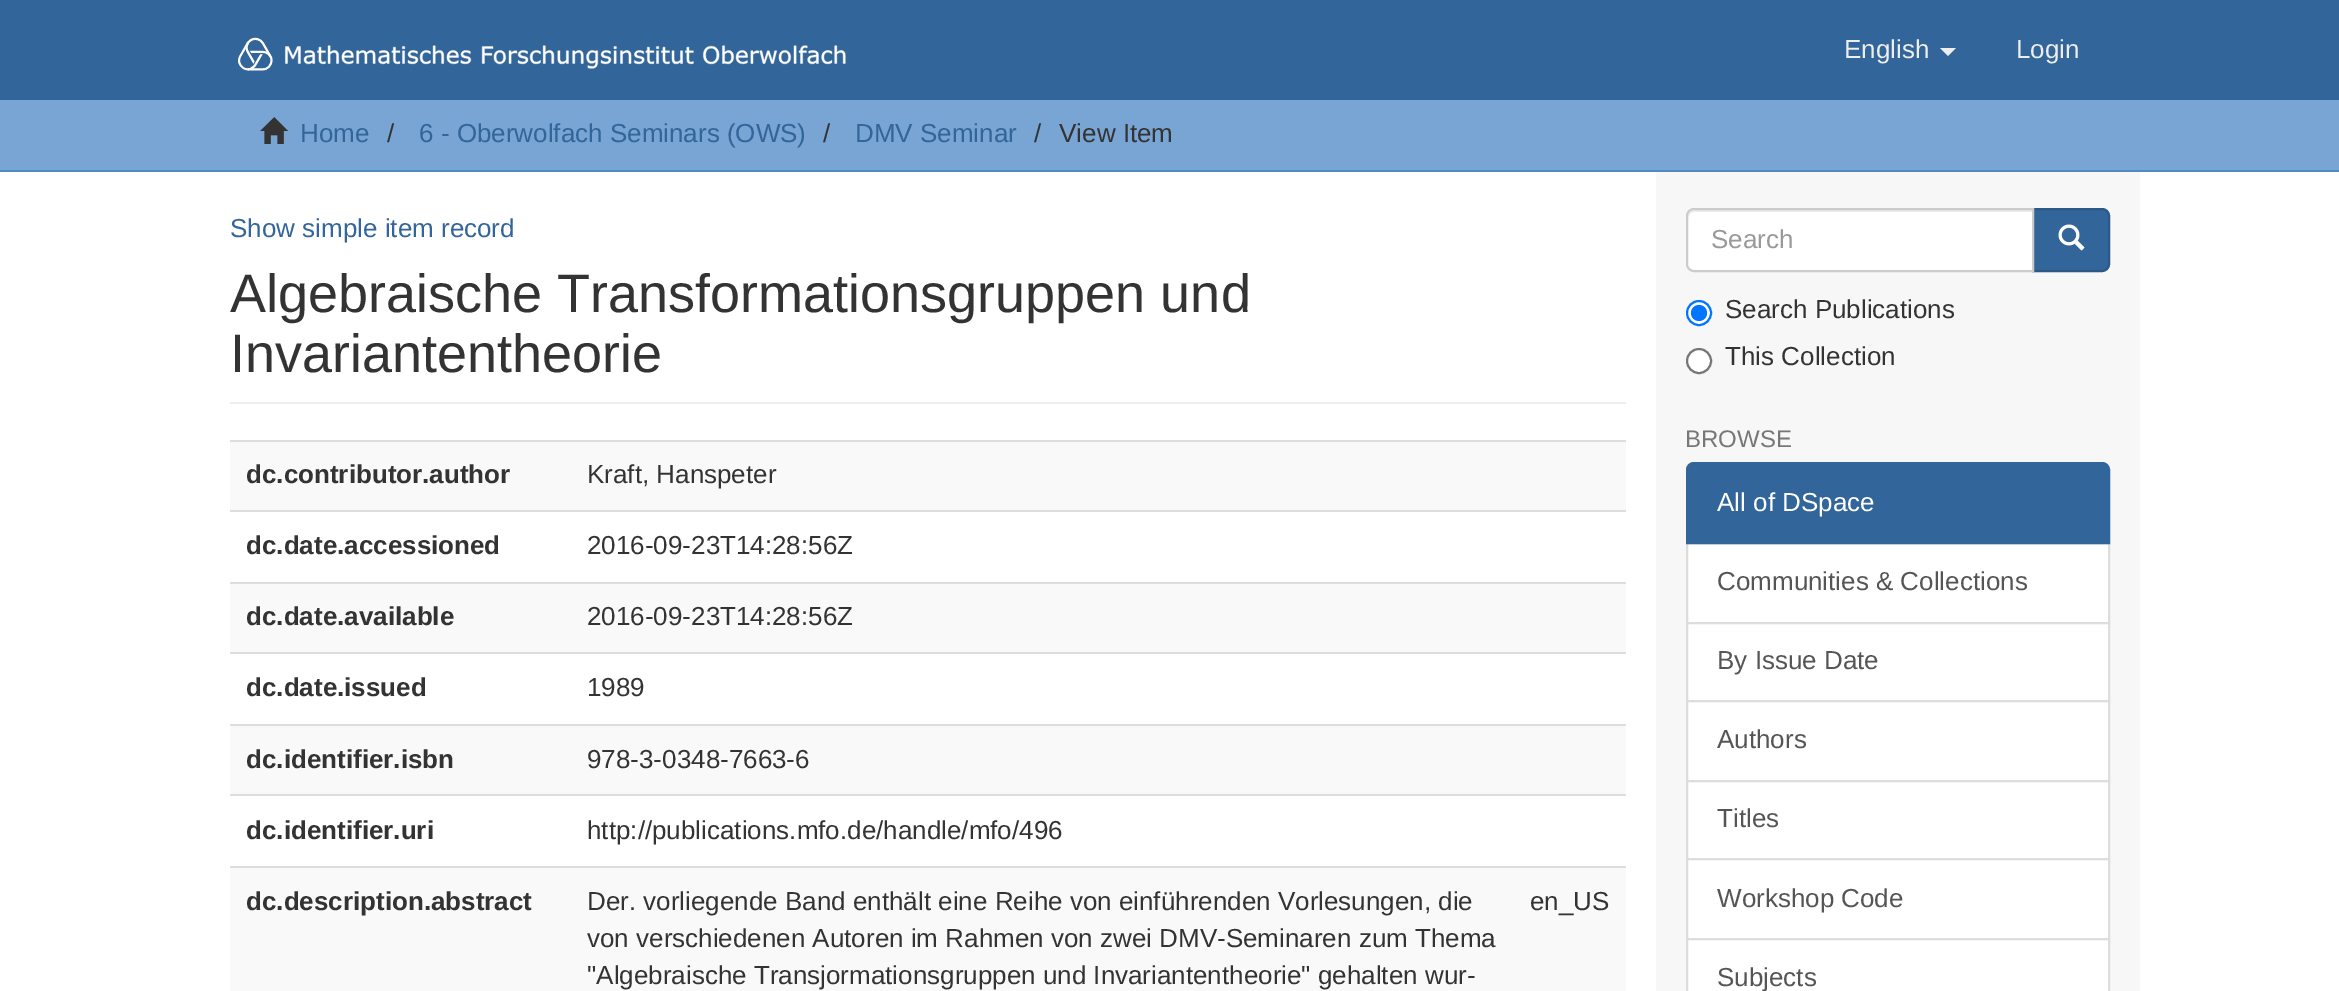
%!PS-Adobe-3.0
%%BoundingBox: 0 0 2339 991
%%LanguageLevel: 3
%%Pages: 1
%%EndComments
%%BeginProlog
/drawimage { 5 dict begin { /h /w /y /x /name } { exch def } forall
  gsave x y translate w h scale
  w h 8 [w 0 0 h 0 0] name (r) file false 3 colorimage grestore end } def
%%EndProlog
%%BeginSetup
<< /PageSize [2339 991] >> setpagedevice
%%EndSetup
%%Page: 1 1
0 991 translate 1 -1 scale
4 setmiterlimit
1 setgray
0 0 2339 991 rectfill
0.196 0.396 0.6 setrgbcolor
0 0 2339 100 rectfill
(images/1.raw) 238 37 608 34 drawimage
0.933 setgray
newpath 1940 48 moveto 1956 48 lineto 1948 56 lineto closepath fill
0.471 0.647 0.827 setrgbcolor
0 100 2339 70 rectfill
0.318 0.545 0.776 setrgbcolor
0 170 2339 2 rectfill
(images/2.raw) 260 117 29 27 drawimage
0.969 setgray
1656 172 484 819 rectfill
0.933 setgray
230 402 1396 2 rectfill
0.976 setgray
230 442 1396 68 rectfill
0.867 setgray
230 440 1396 2 rectfill
230 510 1396 2 rectfill
0.976 setgray
230 584 1396 68 rectfill
0.867 setgray
230 582 1396 2 rectfill
230 652 1396 2 rectfill
0.976 setgray
230 726 1396 68 rectfill
0.867 setgray
230 724 1396 2 rectfill
230 794 1396 2 rectfill
0.976 setgray
230 868 1396 123 rectfill
0.867 setgray
230 866 1396 2 rectfill
0.196 0.396 0.6 setrgbcolor
newpath 2033 209 moveto 2102 209 lineto 2106 209 2109 212 2109 216 curveto 2109 264 lineto 2109 268 2106 271 2102 271 curveto 2033 271 lineto closepath gsave fill grestore
0.173 0.345 0.525 setrgbcolor
2 setlinewidth
stroke
1 setgray
newpath 1694 208 moveto 2034 208 lineto 2034 272 lineto 1694 272 lineto 1689.5 272 1686 268.5 1686 264 curveto 1686 216 lineto 1686 211.5 1689.5 208 1694 208 curveto closepath fill
0.925 setgray
newpath 1694 212 moveto 2032 212 lineto 2032 210 lineto 1694 210 lineto 1689 210 1688 214 1688 218 curveto 1688 215 1691 212 1694 212 curveto closepath fill
0.8 setgray
newpath 1694 209 moveto 2033 209 lineto 2033 271 lineto 1694 271 lineto 1690 271 1687 268 1687 264 curveto 1687 216 lineto 1687 212 1690 209 1694 209 curveto closepath stroke
(images/3.raw) 2058 224 27 27 drawimage
1 setgray
newpath 1699 313 12 0 360 arc closepath gsave fill grestore
0 0.459 1 setrgbcolor
stroke
newpath 1699 313 8 0 360 arc closepath fill
1 setgray
newpath 1699 361 12 0 360 arc closepath gsave fill grestore
0.463 setgray
stroke
1 setgray
newpath 1687 543 moveto 2109 543 lineto 2109 623 lineto 1687 623 lineto closepath gsave fill grestore
0.867 setgray
stroke
0.196 0.396 0.6 setrgbcolor
newpath 1694 463 moveto 2102 463 lineto 2106 463 2109 466 2109 470 curveto 2109 543 lineto 1687 543 lineto 1687 470 lineto 1687 466 1690 463 1694 463 curveto closepath gsave fill grestore
stroke
1 setgray
newpath 1687 623 moveto 2109 623 lineto 2109 701 lineto 1687 701 lineto closepath gsave fill grestore
0.867 setgray
stroke
1 setgray
newpath 1687 701 moveto 2109 701 lineto 2109 781 lineto 1687 781 lineto closepath gsave fill grestore
0.867 setgray
stroke
1 setgray
newpath 1687 781 moveto 2109 781 lineto 2109 859 lineto 1687 859 lineto closepath gsave fill grestore
0.867 setgray
stroke
1 setgray
newpath 1687 859 moveto 2109 859 lineto 2109 939 lineto 1687 939 lineto closepath gsave fill grestore
0.867 setgray
stroke
1 setgray
newpath 1687 939 moveto 2109 939 lineto 2109 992 lineto 1687 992 lineto closepath gsave fill grestore
0.867 setgray
stroke
/LiberationSans-Regular [26 0 0 -26 0 0] selectfont
0.933 setgray
1844 58 moveto (English) show
2016 58 moveto (Login) show
0.196 0.396 0.6 setrgbcolor
300 142 moveto (Home) show
0.2 setgray
387 142 moveto (/) show
0.196 0.396 0.6 setrgbcolor
419 142 moveto (6 - Oberwolfach Seminars \(OWS\)) show
0.2 setgray
823 142 moveto (/) show
0.196 0.396 0.6 setrgbcolor
855 142 moveto (DMV Seminar) show
0.2 setgray
1034 142 moveto (/) show
1059 142 moveto (View Item) show
0.196 0.396 0.6 setrgbcolor
230 237 moveto (Show simple item record) show
/LiberationSans-Regular [54 0 0 -54 0 0] selectfont
0.2 setgray
230 312 moveto (Algebraische Transformationsgruppen und) show
230 372 moveto (Invariantentheorie) show
/LiberationSans-Bold [26 0 0 -26 0 0] selectfont
246 483 moveto (dc.contributor.author) show
/LiberationSans-Regular [26 0 0 -26 0 0] selectfont
587 483 moveto (Kraft, Hanspeter) show
/LiberationSans-Bold [26 0 0 -26 0 0] selectfont
246 554 moveto (dc.date.accessioned) show
/LiberationSans-Regular [26 0 0 -26 0 0] selectfont
587 554 moveto (2016-09-23T14:28:56Z) show
/LiberationSans-Bold [26 0 0 -26 0 0] selectfont
246 625 moveto (dc.date.available) show
/LiberationSans-Regular [26 0 0 -26 0 0] selectfont
587 625 moveto (2016-09-23T14:28:56Z) show
/LiberationSans-Bold [26 0 0 -26 0 0] selectfont
246 696 moveto (dc.date.issued) show
/LiberationSans-Regular [26 0 0 -26 0 0] selectfont
587 696 moveto (1989) show
/LiberationSans-Bold [26 0 0 -26 0 0] selectfont
246 768 moveto (dc.identifier.isbn) show
/LiberationSans-Regular [26 0 0 -26 0 0] selectfont
587 768 moveto (978-3-0348-7663-6) show
/LiberationSans-Bold [26 0 0 -26 0 0] selectfont
246 839 moveto (dc.identifier.uri) show
/LiberationSans-Regular [26 0 0 -26 0 0] selectfont
587 839 moveto (http://publications.mfo.de/handle/mfo/496) show
/LiberationSans-Bold [26 0 0 -26 0 0] selectfont
246 910 moveto (dc.description.abstract) show
/LiberationSans-Regular [26 0 0 -26 0 0] selectfont
587 910 moveto (Der. vorliegende Band enthält eine Reihe von einführenden Vorlesungen, die) show
587 947 moveto (von verschiedenen Autoren im Rahmen von zwei DMV-Seminaren zum Thema) show
587 984 moveto ("Algebraische Transjormationsgruppen und Invariantentheorie" gehalten wur-) show
1530 910 moveto (en_US) show
0.6 setgray
1711 248 moveto (Search) show
0.2 setgray
1725 318 moveto (Search Publications) show
1725 365 moveto (This Collection) show
/LiberationSans-Regular [24 0 0 -24 0 0] selectfont
0.467 setgray
1685 447 moveto (BROWSE) show
/LiberationSans-Regular [26 0 0 -26 0 0] selectfont
1 setgray
1717 511 moveto (All of DSpace) show
0.333 setgray
1717 590 moveto (Communities & Collections) show
1717 669 moveto (By Issue Date) show
1717 748 moveto (Authors) show
1717 827 moveto (Titles) show
1717 907 moveto (Workshop Code) show
1717 986 moveto (Subjects) show
showpage
%%EOF
